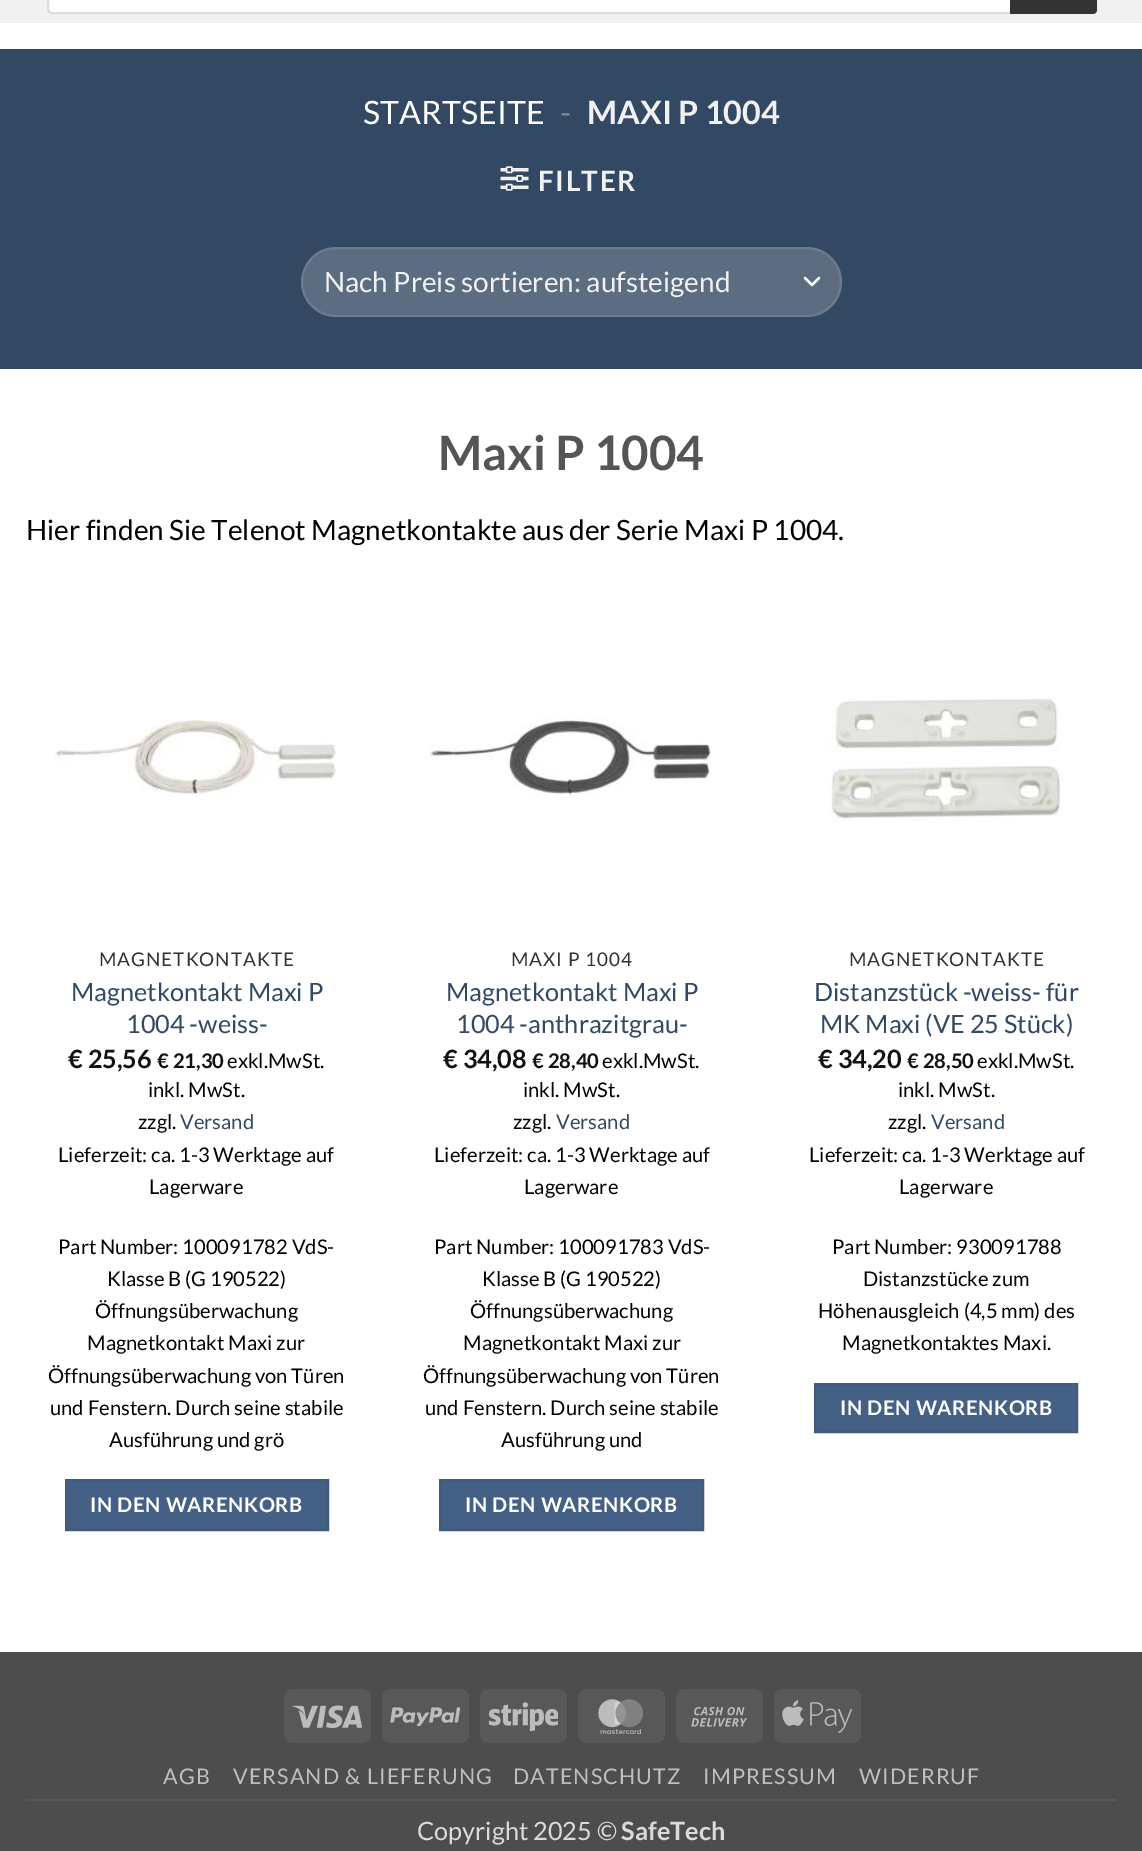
%!PS-Adobe-3.0
%%BoundingBox: 0 0 1142 1851
%%LanguageLevel: 3
%%Pages: 1
%%EndComments
%%BeginProlog
/setalpha { dup .setfillconstantalpha .setstrokeconstantalpha } def
/rrect { 5 dict begin { /r /h /w /y /x } { exch def } forall
  x r add y moveto x w add y 2 copy h add r arct x w add y h add x 1 index r arct
  x y h add x y r arct x y 2 copy exch w add exch r arct closepath end } def
/drawimage { 5 dict begin { /h /w /y /x /name } { exch def } forall
  gsave x y translate w h scale
  w h 8 [w 0 0 h 0 0] name (r) file false 3 colorimage grestore end } def
%%EndProlog
%%BeginSetup
<< /PageSize [1142 1851] /PageUsesTransparency true >> setpagedevice
%%EndSetup
%%Page: 1 1
0 .pushpdf14devicefilter
0 1851 translate 1 -1 scale
4 setmiterlimit
1 setgray
0 0 1142 1851 rectfill
0.945 setgray
0 0 1142 23 rectfill
1 setgray
48 -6 1048 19 4 rrect gsave fill grestore
0.867 setgray
2 setlinewidth
stroke
0.2 setgray
newpath 1010 -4 moveto 1093 -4 lineto 1095 -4 1097 -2 1097 0 curveto 1097 10 lineto 1097 12 1095 14 1093 14 curveto 1010 14 lineto closepath fill
0.2 0.282 0.388 setrgbcolor
0 49 1142 320 rectfill
(images/1.raw) 500 166 29 25 drawimage
0.361 0.427 0.51 setrgbcolor
301 247 541 70 35 rrect fill
1 setgray
2.3 setlinewidth
1 setlinecap
1 setlinejoin
newpath 805 278 moveto 812 285 lineto 819 278 lineto stroke
0.09 setalpha
2 setlinewidth
0 setlinecap
0 setlinejoin
302 248 539 68 34 rrect stroke
1 setalpha
(images/2.raw) 54 719 282 78 drawimage
0.267 0.376 0.518 setrgbcolor
newpath 66 1480 moveto 328 1480 lineto 328 1530 lineto 66 1530 lineto closepath gsave fill grestore
0.255 0.357 0.49 setrgbcolor
stroke
(images/3.raw) 428 716 283 81 drawimage
0.267 0.376 0.518 setrgbcolor
newpath 440 1480 moveto 703 1480 lineto 703 1530 lineto 440 1530 lineto closepath gsave fill grestore
0.255 0.357 0.49 setrgbcolor
stroke
(images/4.raw) 830 697 235 125 drawimage
0.267 0.376 0.518 setrgbcolor
newpath 815 1384 moveto 1077 1384 lineto 1077 1432 lineto 815 1432 lineto closepath gsave fill grestore
0.255 0.357 0.49 setrgbcolor
stroke
0.302 setgray
0 1652 1142 199 rectfill
0.345 setgray
284 1689 87 54 9 rrect fill
(images/5.raw) 292 1705 70 24 drawimage
382 1689 87 54 9 rrect fill
(images/6.raw) 390 1707 70 20 drawimage
480 1689 87 54 9 rrect fill
(images/7.raw) 488 1702 70 30 drawimage
578 1689 87 54 9 rrect fill
(images/8.raw) 598 1699 45 35 drawimage
676 1689 87 54 9 rrect fill
(images/9.raw) 691 1707 57 20 drawimage
774 1689 87 54 9 rrect fill
(images/10.raw) 782 1700 70 33 drawimage
26 1799 1091 2 rectfill
/Lato-Regular [32.25 0 0 -32.25 0 0] selectfont
1 setgray
363 124 moveto (STARTSEITE) show
0.463 0.514 0.584 setrgbcolor
560 124 moveto (-) show
/Lato-Bold [32.25 0 0 -32.25 0 0] selectfont
0.945 setgray
587 124 moveto (MAXI P 1004) show
/Lato-Bold [28 0 0 -28 0 0] selectfont
538 191 moveto 1.5 0 (FILTER) ashow
/Lato-Regular [28 0 0 -28 0 0] selectfont
324 292 moveto (Nach Preis sortieren: aufsteigend) show
/Lato-Bold [47.5 0 0 -47.5 0 0] selectfont
0.333 setgray
438 470 moveto (Maxi P 1004) show
/Lato-Regular [28 0 0 -28 0 0] selectfont
0 setgray
26 540 moveto (Hier finden Sie Telenot Magnetkontakte aus der Serie Maxi P 1004.) show
/Lato-Regular [18.9 0 0 -18.9 0 0] selectfont
0.2 setgray
99 966 moveto 1 0 (MAGNETKONTAKTE) ashow
/Lato-Regular [25.25 0 0 -25.25 0 0] selectfont
0.2 0.282 0.384 setrgbcolor
71 1001 moveto (Magnetkontakt Maxi P) show
126 1033 moveto (1004 -weiss-) show
/Lato-Bold [25.25 0 0 -25.25 0 0] selectfont
0.067 setgray
68 1068 moveto (€ 25,56) show
/Lato-Bold [20.2 0 0 -20.2 0 0] selectfont
157 1068 moveto (€ 21,30) show
/Lato-Regular [20.2 0 0 -20.2 0 0] selectfont
0 setgray
227 1068 moveto (exkl.MwSt.) show
148 1097 moveto (inkl. MwSt.) show
138 1129 moveto (zzgl.) show
0.2 0.282 0.384 setrgbcolor
180 1129 moveto (Versand) show
0 setgray
58 1162 moveto (Lieferzeit: ca. 1-3 Werktage auf) show
149 1194 moveto (Lagerware) show
58 1254 moveto (Part Number: 100091782 VdS-) show
107 1286 moveto (Klasse B \(G 190522\)) show
95 1318 moveto (Öffnungsüberwachung) show
87 1350 moveto (Magnetkontakt Maxi zur) show
48 1383 moveto (Öffnungsüberwachung von Türen) show
50 1415 moveto (und Fenstern. Durch seine stabile) show
109 1447 moveto (Ausführung und grö) show
/Lato-Bold [20.2 0 0 -20.2 0 0] selectfont
1 setgray
90 1512 moveto 0.6 0 (IN DEN WARENKORB) ashow
/Lato-Regular [18.9 0 0 -18.9 0 0] selectfont
0.2 setgray
511 966 moveto 1 0 (MAXI P 1004) ashow
/Lato-Regular [25.25 0 0 -25.25 0 0] selectfont
0.2 0.282 0.384 setrgbcolor
446 1001 moveto (Magnetkontakt Maxi P) show
456 1033 moveto (1004 -anthrazitgrau-) show
/Lato-Bold [25.25 0 0 -25.25 0 0] selectfont
0.067 setgray
443 1068 moveto (€ 34,08) show
/Lato-Bold [20.2 0 0 -20.2 0 0] selectfont
532 1068 moveto (€ 28,40) show
/Lato-Regular [20.2 0 0 -20.2 0 0] selectfont
0 setgray
602 1068 moveto (exkl.MwSt.) show
523 1097 moveto (inkl. MwSt.) show
513 1129 moveto (zzgl.) show
0.2 0.282 0.384 setrgbcolor
556 1129 moveto (Versand) show
0 setgray
434 1162 moveto (Lieferzeit: ca. 1-3 Werktage auf) show
524 1194 moveto (Lagerware) show
434 1254 moveto (Part Number: 100091783 VdS-) show
482 1286 moveto (Klasse B \(G 190522\)) show
470 1318 moveto (Öffnungsüberwachung) show
463 1350 moveto (Magnetkontakt Maxi zur) show
423 1383 moveto (Öffnungsüberwachung von Türen) show
425 1415 moveto (und Fenstern. Durch seine stabile) show
501 1447 moveto (Ausführung und) show
/Lato-Bold [20.2 0 0 -20.2 0 0] selectfont
1 setgray
465 1512 moveto 0.6 0 (IN DEN WARENKORB) ashow
/Lato-Regular [18.9 0 0 -18.9 0 0] selectfont
0.2 setgray
849 966 moveto 1 0 (MAGNETKONTAKTE) ashow
/Lato-Regular [25.25 0 0 -25.25 0 0] selectfont
0.2 0.282 0.384 setrgbcolor
814 1001 moveto (Distanzstück -weiss- für) show
820 1033 moveto (MK Maxi \(VE 25 Stück\)) show
/Lato-Bold [25.25 0 0 -25.25 0 0] selectfont
0.067 setgray
818 1068 moveto (€ 34,20) show
/Lato-Bold [20.2 0 0 -20.2 0 0] selectfont
907 1068 moveto (€ 28,50) show
/Lato-Regular [20.2 0 0 -20.2 0 0] selectfont
0 setgray
977 1068 moveto (exkl.MwSt.) show
898 1097 moveto (inkl. MwSt.) show
888 1129 moveto (zzgl.) show
0.2 0.282 0.384 setrgbcolor
931 1129 moveto (Versand) show
0 setgray
809 1162 moveto (Lieferzeit: ca. 1-3 Werktage auf) show
899 1194 moveto (Lagerware) show
832 1254 moveto (Part Number: 930091788) show
863 1286 moveto (Distanzstücke zum) show
818 1318 moveto (Höhenausgleich \(4,5 mm\) des) show
842 1350 moveto (Magnetkontaktes Maxi.) show
/Lato-Bold [20.2 0 0 -20.2 0 0] selectfont
1 setgray
840 1415 moveto 0.6 0 (IN DEN WARENKORB) ashow
/Lato-Regular [21.5 0 0 -21.5 0 0] selectfont
0.749 setgray
163 1784 moveto 1.1 0 (AGB) ashow
233 1784 moveto 1.1 0 (VERSAND & LIEFERUNG) ashow
513 1784 moveto 1.1 0 (DATENSCHUTZ) ashow
703 1784 moveto 1.1 0 (IMPRESSUM) ashow
859 1784 moveto 1.1 0 (WIDERRUF) ashow
/Lato-Regular [25.25 0 0 -25.25 0 0] selectfont
0.859 setgray
417 1840 moveto (Copyright 2025 ©) show
/Lato-Bold [25.25 0 0 -25.25 0 0] selectfont
621 1840 moveto (SafeTech) show
.poppdf14devicefilter showpage
%%EOF
